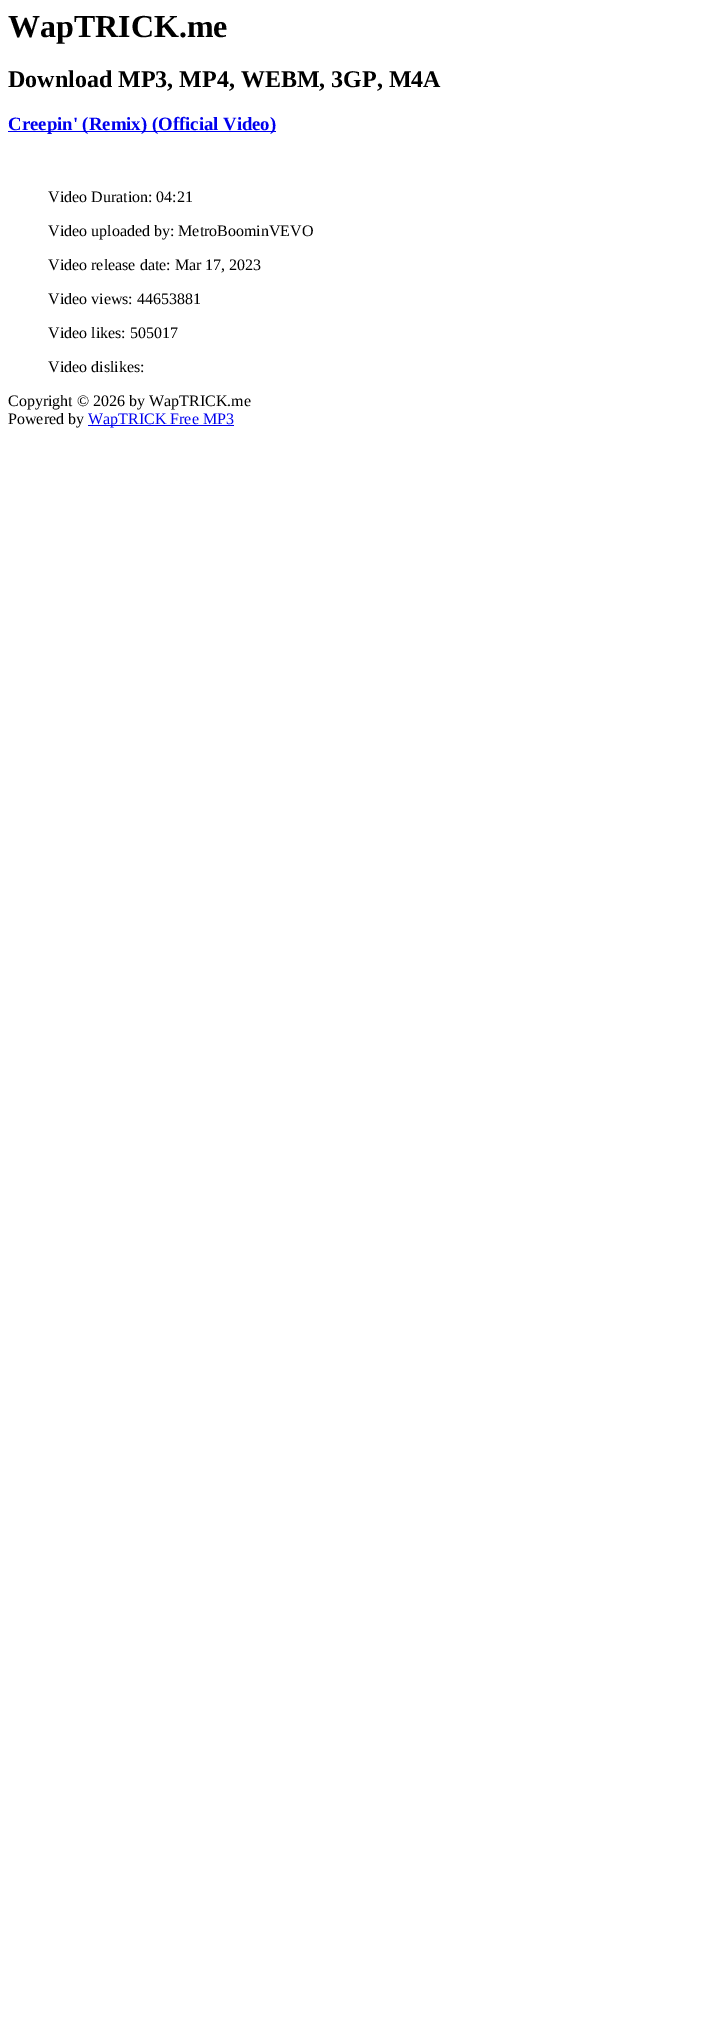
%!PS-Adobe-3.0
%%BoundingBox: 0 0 715 2022
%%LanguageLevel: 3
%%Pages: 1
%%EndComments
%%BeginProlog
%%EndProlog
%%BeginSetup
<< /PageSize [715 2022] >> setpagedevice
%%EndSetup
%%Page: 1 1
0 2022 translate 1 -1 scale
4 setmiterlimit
1 setgray
0 0 715 2022 rectfill
0 0 0.933 setrgbcolor
8 131 268 1 rectfill
88 425 146 1 rectfill
/LiberationSerif-Bold [32 0 0 -32 0 0] selectfont
0 setgray
8 37 moveto (WapTRICK.me) show
/LiberationSerif-Bold [24 0 0 -24 0 0] selectfont
8 87 moveto (Download MP3, MP4, WEBM, 3GP, M4A) show
/LiberationSerif-Bold [18.75 0 0 -18.75 0 0] selectfont
0 0 0.933 setrgbcolor
8 130 moveto (Creepin' \(Remix\) \(Official Video\)) show
/LiberationSerif-Regular [16 0 0 -16 0 0] selectfont
0 setgray
48 202 moveto (Video Duration: 04:21) show
48 236 moveto (Video uploaded by: MetroBoominVEVO) show
48 270 moveto (Video release date: Mar 17, 2023) show
48 304 moveto (Video views: 44653881) show
48 338 moveto (Video likes: 505017) show
48 372 moveto (Video dislikes:) show
8 406 moveto (Copyright © 2026 by WapTRICK.me) show
8 424 moveto (Powered by) show
0 0 0.933 setrgbcolor
88 424 moveto (WapTRICK Free MP3) show
showpage
%%EOF
